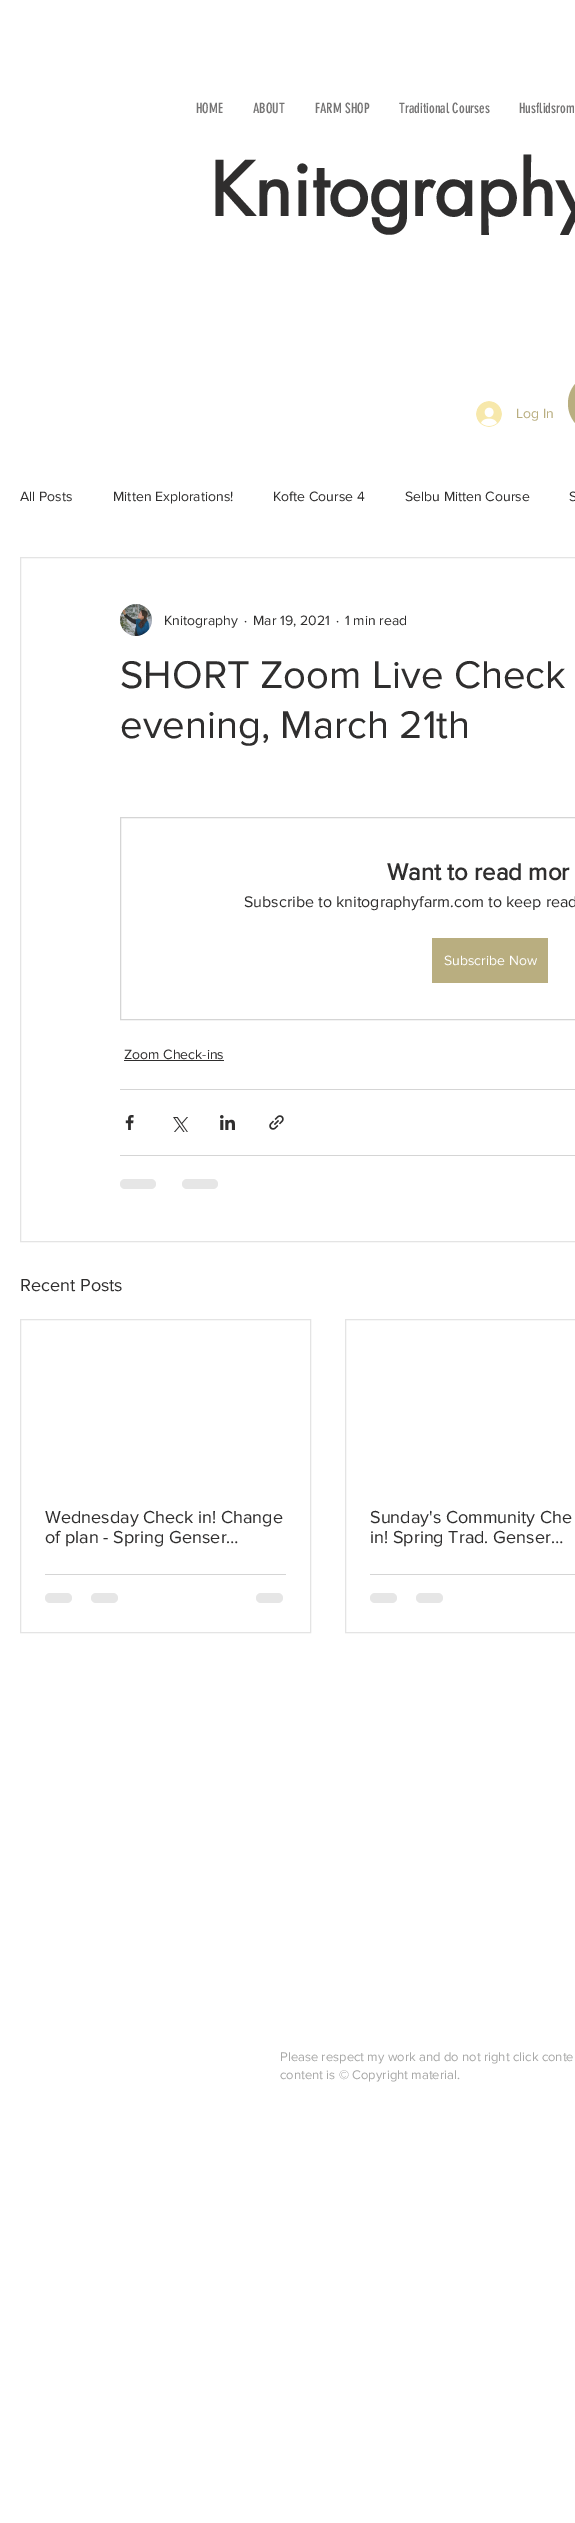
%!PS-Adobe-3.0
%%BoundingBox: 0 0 575 2523
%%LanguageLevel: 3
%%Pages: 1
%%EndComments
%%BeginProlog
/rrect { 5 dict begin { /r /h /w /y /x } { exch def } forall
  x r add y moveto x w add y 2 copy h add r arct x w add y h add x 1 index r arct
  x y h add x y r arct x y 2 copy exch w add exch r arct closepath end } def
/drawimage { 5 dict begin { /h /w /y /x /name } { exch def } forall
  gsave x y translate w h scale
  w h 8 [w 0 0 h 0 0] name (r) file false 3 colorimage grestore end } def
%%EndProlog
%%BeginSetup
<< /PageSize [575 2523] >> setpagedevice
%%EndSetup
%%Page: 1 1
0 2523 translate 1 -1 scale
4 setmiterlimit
1 setgray
0 0 575 2523 rectfill
(images/1.raw) 476 401 26 26 drawimage
0.725 0.682 0.502 setrgbcolor
568 373 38 61 30.5 rrect fill
0.894 setgray
20.5 557.5 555 684 rectstroke
(images/2.raw) 120 604 32 32 drawimage
0.835 setgray
120.5 817.5 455 202 rectstroke
0.725 0.682 0.502 setrgbcolor
432 938 116 45 rectfill
0.184 0.18 0.18 setrgbcolor
124 1060 100 1 rectfill
0.835 setgray
120 1089 455 1 rectfill
(images/3.raw) 125 1115 9 15 drawimage
(images/4.raw) 173 1117 15 15 drawimage
(images/5.raw) 220 1115 15 15 drawimage
(images/6.raw) 269 1115 15 15 drawimage
120 1155 455 1 rectfill
0.902 setgray
120 1179 36 10 5 rrect fill
182 1179 36 10 5 rrect fill
0.894 setgray
20.5 1319.5 290 313 rectstroke
0.835 setgray
45 1574 241 1 rectfill
0.902 setgray
45 1593 27 10 5 rrect fill
91 1593 27 10 5 rrect fill
256 1593 27 10 5 rrect fill
0.894 setgray
345.5 1319.5 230 313 rectstroke
0.835 setgray
370 1574 205 1 rectfill
0.902 setgray
370 1593 27 10 5 rrect fill
416 1593 27 10 5 rrect fill
/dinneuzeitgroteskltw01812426-Regular [14 0 0 -14 0 0] selectfont
0.459 0.455 0.455 setrgbcolor
196 113 moveto (HOME) show
253 113 moveto (ABOUT) show
315 113 moveto (FARM SHOP) show
399 113 moveto (Traditional Courses) show
519 113 moveto (Husflidsrom) show
/futura-Bold [72 0 0 -72 0 0] selectfont
0.184 0.18 0.18 setrgbcolor
210 216 moveto (Knitography) show
/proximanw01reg-Regular [14 0 0 -14 0 0] selectfont
0.725 0.682 0.502 setrgbcolor
516 418 moveto (Log In) show
0.184 0.18 0.18 setrgbcolor
20 501 moveto (All Posts) show
113 501 moveto (Mitten Explorations!) show
273 501 moveto (Kofte Course 4) show
405 501 moveto (Selbu Mitten Course) show
569 501 moveto (S) show
164 625 moveto (Knitography) show
244 625 moveto (·) show
253 625 moveto (Mar 19, 2021) show
336 625 moveto (·) show
345 625 moveto (1 min read) show
/proximanw01reg-Regular [40 0 0 -40 0 0] selectfont
120 688 moveto (SHORT Zoom Live Check) show
120 738 moveto (evening, March 21th) show
/proximanw01reg-Bold [24 0 0 -24 0 0] selectfont
387 880 moveto (Want to read mor) show
/proximanw01reg-Regular [16 0 0 -16 0 0] selectfont
244 907 moveto (Subscribe to knitographyfarm.com to keep read) show
/proximanw01reg-Regular [14 0 0 -14 0 0] selectfont
1 setgray
444 965 moveto (Subscribe Now) show
0.184 0.18 0.18 setrgbcolor
124 1059 moveto (Zoom Check-ins) show
/proximanw01reg-Regular [18 0 0 -18 0 0] selectfont
20 1291 moveto (Recent Posts) show
45 1523 moveto (Wednesday Check in! Change) show
45 1543 moveto (of plan - Spring Genser…) show
370 1523 moveto (Sunday's Community Che) show
370 1543 moveto (in! Spring Trad. Genser…) show
/proximanw01reg-Regular [13 0 0 -13 0 0] selectfont
0.659 0.659 0.655 setrgbcolor
280 2061 moveto (Please respect my work and do not right click conte) show
280 2079 moveto (content is © Copyright material.) show
showpage
%%EOF
